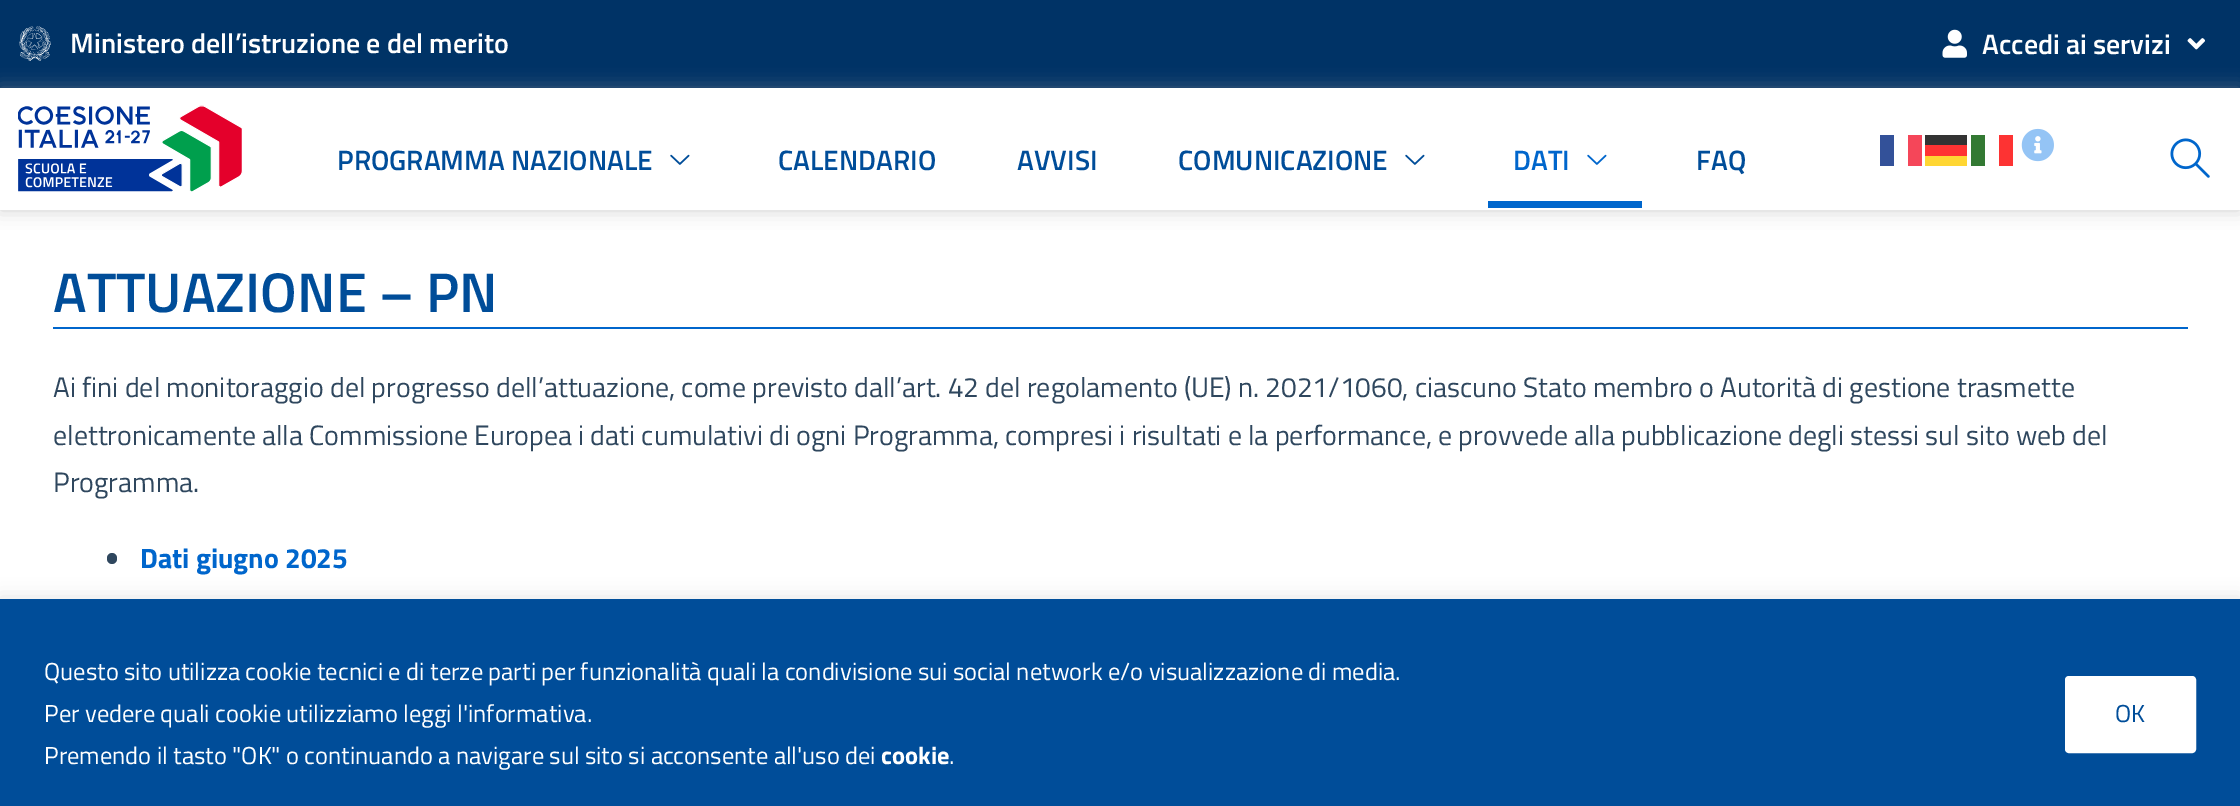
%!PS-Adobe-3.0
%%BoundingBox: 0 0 2240 806
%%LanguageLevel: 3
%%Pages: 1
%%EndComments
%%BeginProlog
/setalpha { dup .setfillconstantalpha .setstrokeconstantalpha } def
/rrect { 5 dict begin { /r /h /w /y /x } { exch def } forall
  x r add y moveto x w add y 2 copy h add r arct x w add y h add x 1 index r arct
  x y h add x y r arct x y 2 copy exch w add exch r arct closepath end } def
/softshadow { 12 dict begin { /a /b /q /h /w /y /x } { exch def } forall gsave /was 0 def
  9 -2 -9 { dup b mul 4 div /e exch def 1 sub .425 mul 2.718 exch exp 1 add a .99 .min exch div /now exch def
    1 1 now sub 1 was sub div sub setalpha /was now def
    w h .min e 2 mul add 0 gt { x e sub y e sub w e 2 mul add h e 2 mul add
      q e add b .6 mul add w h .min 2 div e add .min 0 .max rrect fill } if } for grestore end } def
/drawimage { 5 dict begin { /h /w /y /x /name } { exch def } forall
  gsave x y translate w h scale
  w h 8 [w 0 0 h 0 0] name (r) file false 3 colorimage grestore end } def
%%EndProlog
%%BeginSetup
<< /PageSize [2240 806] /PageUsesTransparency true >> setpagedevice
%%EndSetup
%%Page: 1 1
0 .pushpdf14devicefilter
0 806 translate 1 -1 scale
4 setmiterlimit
1 setgray
0 0 2240 806 rectfill
0 0.2 0.4 setrgbcolor
0 0 2240 88 rectfill
(images/1.raw) 19 26 32 35 drawimage
(images/2.raw) 1942 29 25 29 drawimage
(images/3.raw) 2187 38 18 12 drawimage
gsave
newpath 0 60 moveto 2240 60 lineto 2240 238 lineto 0 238 lineto closepath 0 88 moveto 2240 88 lineto 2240 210 lineto 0 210 lineto closepath eoclip newpath
0.573 0.565 0.565 setrgbcolor
0 88 2240 122 0 9 0.45 softshadow
grestore
(images/4.raw) 18 105 225 87 drawimage
(images/5.raw) 670 154 20 11 drawimage
(images/5.raw) 1405 154 20 11 drawimage
0 0.4 0.8 setrgbcolor
1488 201 154 7 rectfill
(images/6.raw) 1587 154 20 11 drawimage
0.2 0.318 0.6 setrgbcolor
1880 135 14 31 rectfill
0.961 0.275 0.349 setrgbcolor
1908 135 14 31 rectfill
0.2 setgray
1925 135 42 10 rectfill
0.2 0.475 0.2 setrgbcolor
1971 135 14 31 rectfill
0.992 0.2 0.2 setrgbcolor
1999 135 14 31 rectfill
1 0.2 0.2 setrgbcolor
1925 145 42 11 rectfill
1 0.839 0.2 setrgbcolor
1925 156 42 10 rectfill
(images/7.raw) 2021 128 33 34 drawimage
(images/8.raw) 2170 138 40 40 drawimage
0 0.4 0.8 setrgbcolor
53 327 2135 2 rectfill
0.184 0.278 0.369 setrgbcolor
107 553 10 11 5 rrect fill
0.675 0.671 0.671 setrgbcolor
0 597 2240 208 0 9 0.3 softshadow
0 0.302 0.6 setrgbcolor
0 599 2240 207 rectfill
1 setgray
2067 678 127 73 2 rrect gsave fill grestore
4 setlinewidth
stroke
/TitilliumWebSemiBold-SemiBold [28 0 0 -28 0 0] selectfont
70 53 moveto (Ministero dell’istruzione e del merito) show
1982 54 moveto (Accedi ai servizi) show
0 0.302 0.6 setrgbcolor
337 170 moveto (PROGRAMMA NAZIONALE) show
778 170 moveto (CALENDARIO) show
1017 170 moveto (AVVISI) show
1178 170 moveto (COMUNICAZIONE) show
0 0.4 0.8 setrgbcolor
1513 170 moveto (DATI) show
0 0.302 0.6 setrgbcolor
1696 170 moveto (FAQ) show
/TitilliumWebSemiBold-SemiBold [56 0 0 -56 0 0] selectfont
53 312 moveto (ATTUAZIONE – PN) show
/TitilliumWeb-Regular [28 0 0 -28 0 0] selectfont
0.184 0.278 0.369 setrgbcolor
53 397 moveto (Ai fini del monitoraggio del progresso dell’attuazione, come previsto dall’art. 42 del regolamento \(UE\) n. 2021/1060, ciascuno Stato membro o Autorità di gestione trasmette) show
53 445 moveto (elettronicamente alla Commissione Europea i dati cumulativi di ogni Programma, compresi i risultati e la performance, e provvede alla pubblicazione degli stessi sul sito web del) show
53 492 moveto (Programma.) show
/TitilliumWeb-Bold [28 0 0 -28 0 0] selectfont
0 0.4 0.8 setrgbcolor
140 568 moveto (Dati giugno 2025) show
/TitilliumWeb-Regular [24.5 0 0 -24.5 0 0] selectfont
1 setgray
44 680 moveto (Questo sito utilizza cookie tecnici e di terze parti per funzionalità quali la condivisione sui social network e/o visualizzazione di media.) show
44 722 moveto (Per vedere quali cookie utilizziamo leggi l'informativa.) show
44 764 moveto (Premendo il tasto "OK" o continuando a navigare sul sito si acconsente all'uso dei) show
/TitilliumWeb-Bold [24.5 0 0 -24.5 0 0] selectfont
881 764 moveto (cookie) show
/TitilliumWeb-Regular [24.5 0 0 -24.5 0 0] selectfont
949 764 moveto (.) show
0 0.302 0.6 setrgbcolor
2115 722 moveto (OK) show
.poppdf14devicefilter showpage
%%EOF
